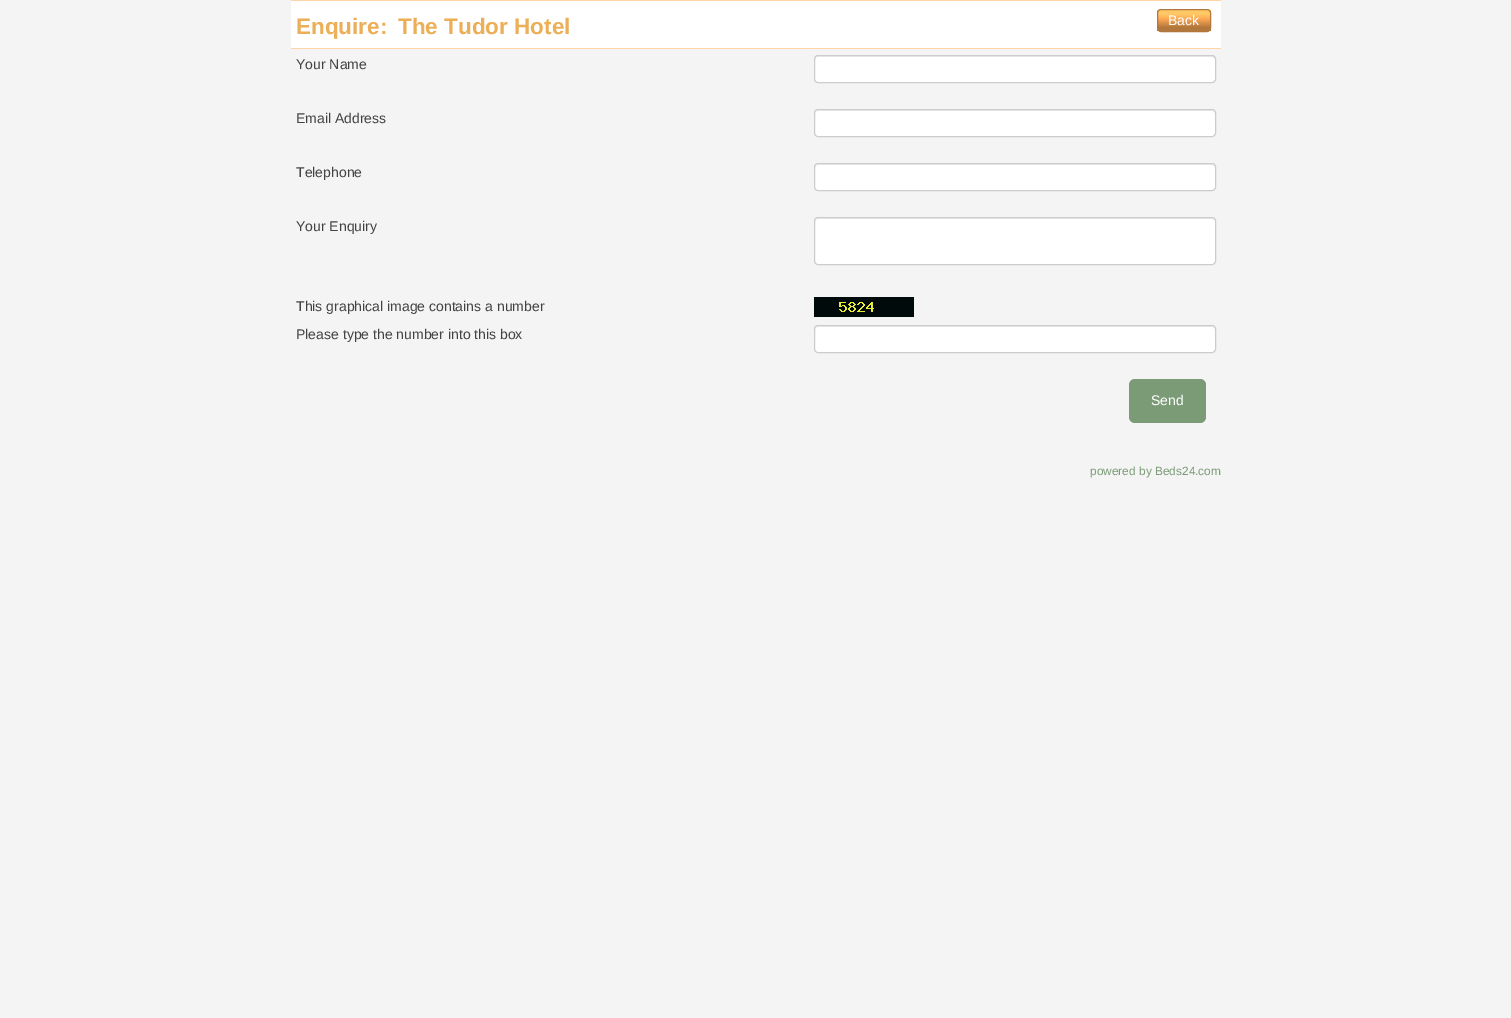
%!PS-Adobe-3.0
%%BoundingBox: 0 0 1511 1018
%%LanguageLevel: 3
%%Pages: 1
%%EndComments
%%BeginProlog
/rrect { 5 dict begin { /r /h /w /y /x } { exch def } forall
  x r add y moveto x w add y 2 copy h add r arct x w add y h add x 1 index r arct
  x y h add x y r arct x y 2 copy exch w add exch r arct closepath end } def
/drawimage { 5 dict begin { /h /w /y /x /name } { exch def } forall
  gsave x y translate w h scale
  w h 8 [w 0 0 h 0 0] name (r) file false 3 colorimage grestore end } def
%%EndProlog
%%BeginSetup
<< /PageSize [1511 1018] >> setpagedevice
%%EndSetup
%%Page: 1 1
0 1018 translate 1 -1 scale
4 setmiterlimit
0.957 setgray
0 0 1511 1018 rectfill
1 setgray
291 1 930 47 rectfill
1 0.831 0.667 setrgbcolor
291 0 930 1 rectfill
291 48 930 1 rectfill
gsave
1157 9 54 23 4 rrect clip newpath
gsave newpath 1157 10 moveto 1211 10 lineto 1211 31 lineto 1157 31 lineto closepath clip newpath
<< /ShadingType 2 /ColorSpace /DeviceRGB /Coords [1158 31 1158 10] /Extend [true true] /Function << /FunctionType 3 /Domain [0 1] /Functions [<< /FunctionType 2 /Domain [0 1] /C0 [0.698 0.467 0.235] /C1 [0.698 0.467 0.235] /N 1 >> << /FunctionType 2 /Domain [0 1] /C0 [0.698 0.467 0.235] /C1 [1 0.667 0.337] /N 1 >> << /FunctionType 2 /Domain [0 1] /C0 [1 0.667 0.337] /C1 [1 0.784 0.396] /N 1 >> << /FunctionType 2 /Domain [0 1] /C0 [1 0.784 0.396] /C1 [1 0.784 0.396] /N 1 >>] /Bounds [0.17 0.59 0.8] /Encode [0 1 0 1 0 1 0 1] >> >> shfill grestore
grestore
0.698 0.467 0.235 setrgbcolor
1157.5 9.5 53 22 3.5 rrect stroke
1 setgray
814 55 402 28 4 rrect fill
0.925 setgray
newpath 818 57 moveto 1212 57 lineto 1214 57 1215 58 1215 60 curveto 1215 58 1214 56 1212 56 curveto 818 56 lineto 816 57 lineto 815 60 lineto 815 58 816 57 818 57 curveto closepath fill
0.8 setgray
814.5 55.5 401 27 3.5 rrect stroke
1 setgray
814 109 402 28 4 rrect fill
0.925 setgray
newpath 818 111 moveto 1212 111 lineto 1214 111 1215 112 1215 114 curveto 1215 112 1214 110 1212 110 curveto 818 110 lineto 816 111 lineto 815 114 lineto 815 112 816 111 818 111 curveto closepath fill
0.8 setgray
814.5 109.5 401 27 3.5 rrect stroke
1 setgray
814 163 402 28 4 rrect fill
0.925 setgray
newpath 818 165 moveto 1212 165 lineto 1214 165 1215 166 1215 168 curveto 1215 166 1214 164 1212 164 curveto 818 164 lineto 816 165 lineto 815 168 lineto 815 166 816 165 818 165 curveto closepath fill
0.8 setgray
814.5 163.5 401 27 3.5 rrect stroke
1 setgray
814 217 402 48 4 rrect fill
0.925 setgray
newpath 818 219 moveto 1212 219 lineto 1214 219 1215 220 1215 222 curveto 1215 220 1214 218 1212 218 curveto 818 218 lineto 816 219 lineto 815 222 lineto 815 220 816 219 818 219 curveto closepath fill
0.8 setgray
814.5 217.5 401 47 3.5 rrect stroke
(images/1.raw) 814 297 100 20 drawimage
1 setgray
814 325 402 28 4 rrect fill
0.925 setgray
newpath 818 327 moveto 1212 327 lineto 1214 327 1215 328 1215 330 curveto 1215 328 1214 326 1212 326 curveto 818 326 lineto 816 327 lineto 815 330 lineto 815 328 816 327 818 327 curveto closepath fill
0.8 setgray
814.5 325.5 401 27 3.5 rrect stroke
0.478 0.608 0.463 setrgbcolor
1129 379 77 44 6 rrect fill
/LiberationSans-Bold [22.5 0 0 -22.5 0 0] selectfont
0.925 0.682 0.337 setrgbcolor
296 34 moveto (Enquire:) show
398 34 moveto (The Tudor Hotel) show
/LiberationSans-Regular [14 0 0 -14 0 0] selectfont
1 setgray
1168 25 moveto (Back) show
0.259 setgray
296 69 moveto (Your Name) show
296 123 moveto (Email Address) show
296 177 moveto (Telephone) show
296 231 moveto (Your Enquiry) show
296 311 moveto (This graphical image contains a number) show
296 339 moveto (Please type the number into this box) show
1 setgray
1151 405 moveto (Send) show
/LiberationSans-Regular [11.9 0 0 -11.9 0 0] selectfont
0.478 0.608 0.463 setrgbcolor
1090 475 moveto (powered by Beds24.com) show
showpage
%%EOF
